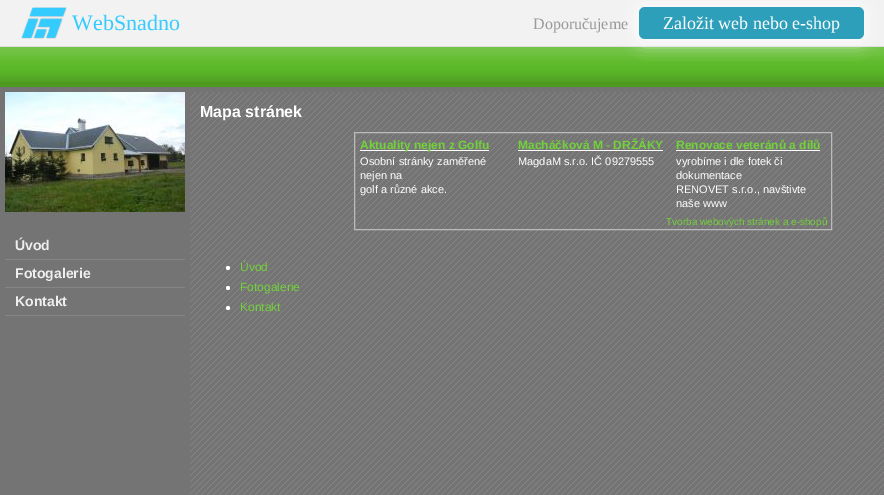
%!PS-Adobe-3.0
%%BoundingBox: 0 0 884 495
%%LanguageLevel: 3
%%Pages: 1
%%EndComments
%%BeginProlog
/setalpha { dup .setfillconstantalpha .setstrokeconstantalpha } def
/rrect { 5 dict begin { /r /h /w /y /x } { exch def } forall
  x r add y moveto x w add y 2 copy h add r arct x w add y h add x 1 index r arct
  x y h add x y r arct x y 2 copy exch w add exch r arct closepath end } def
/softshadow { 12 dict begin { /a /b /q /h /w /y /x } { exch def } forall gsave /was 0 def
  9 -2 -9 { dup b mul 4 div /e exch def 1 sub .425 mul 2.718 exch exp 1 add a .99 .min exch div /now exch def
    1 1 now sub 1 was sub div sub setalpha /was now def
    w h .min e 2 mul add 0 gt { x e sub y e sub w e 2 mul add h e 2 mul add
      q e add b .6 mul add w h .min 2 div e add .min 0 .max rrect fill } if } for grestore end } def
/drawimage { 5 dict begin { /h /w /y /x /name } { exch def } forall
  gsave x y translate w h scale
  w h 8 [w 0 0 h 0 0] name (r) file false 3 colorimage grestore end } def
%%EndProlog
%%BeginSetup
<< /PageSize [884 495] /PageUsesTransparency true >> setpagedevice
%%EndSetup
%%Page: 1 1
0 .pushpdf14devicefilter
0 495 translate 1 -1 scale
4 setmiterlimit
0.298 0.608 0.125 setrgbcolor
0 0 884 495 rectfill
0.949 setgray
0 0 884 46 rectfill
0.867 setgray
0 46 884 1 rectfill
(images/1.raw) 21 7 46 32 drawimage
(images/2.raw) 0 47 884 35 drawimage
1 setgray
635 3 233 40 10 8 0.75 softshadow
0.176 0.624 0.733 setrgbcolor
639 7 225 32 6 rrect fill
0.459 0.455 0.455 setrgbcolor
0 87 190 408 rectfill
(images/3.raw) 190 92 694 403 drawimage
190 87 694 5 rectfill
0.733 setgray
354.5 132.5 477 97 rectstroke
1 setgray
360 150 129 1 rectfill
518 150 145 1 rectfill
676 150 144 1 rectfill
newpath 228 268 2 0 360 arc closepath fill
newpath 228 288 2 0 360 arc closepath fill
newpath 228 308 2 0 360 arc closepath fill
(images/4.raw) 5 92 180 120 drawimage
0.525 0.518 0.522 setrgbcolor
5 259 180 1 rectfill
5 287 180 1 rectfill
5 315 180 1 rectfill
/LiberationSerif-Regular [22 0 0 -22 0 0] selectfont
0.204 0.796 1 setrgbcolor
72 30 moveto (WebSnadno) show
/LiberationSerif-Regular [16 0 0 -16 0 0] selectfont
0.6 setgray
533 29 moveto (Doporučujeme) show
/LiberationSerif-Regular [18 0 0 -18 0 0] selectfont
1 setgray
663 29 moveto (Založit web nebo e-shop) show
/LiberationSans-Bold [16 0 0 -16 0 0] selectfont
200 117 moveto (Mapa stránek) show
/LiberationSans-Bold [12 0 0 -12 0 0] selectfont
0.443 0.824 0.227 setrgbcolor
360 149 moveto (Aktuality nejen z Golfu) show
/LiberationSans-Regular [11 0 0 -11 0 0] selectfont
1 setgray
360 165 moveto (Osobní stránky zaměřené) show
360 179 moveto (nejen na) show
360 193 moveto (golf a různé akce.) show
/LiberationSans-Bold [12 0 0 -12 0 0] selectfont
0.443 0.824 0.227 setrgbcolor
518 149 moveto (Macháčková M - DRŽÁKY) show
/LiberationSans-Regular [11 0 0 -11 0 0] selectfont
1 setgray
518 165 moveto (MagdaM s.r.o. IČ 09279555) show
/LiberationSans-Bold [12 0 0 -12 0 0] selectfont
0.443 0.824 0.227 setrgbcolor
676 149 moveto (Renovace veteránů a dílů) show
/LiberationSans-Regular [11 0 0 -11 0 0] selectfont
1 setgray
676 165 moveto (vyrobíme i dle fotek či) show
676 179 moveto (dokumentace) show
676 193 moveto (RENOVET s.r.o., navštivte) show
676 207 moveto (naše www) show
/LiberationSans-Regular [10 0 0 -10 0 0] selectfont
0.443 0.824 0.227 setrgbcolor
666 225 moveto (Tvorba webových stránek a e-shopů) show
/LiberationSans-Regular [12 0 0 -12 0 0] selectfont
240 271 moveto (Úvod) show
240 291 moveto (Fotogalerie) show
240 311 moveto (Kontakt) show
/LiberationSans-Bold [14 0 0 -14 0 0] selectfont
0.933 setgray
15 250 moveto (Úvod) show
15 278 moveto (Fotogalerie) show
15 306 moveto (Kontakt) show
.poppdf14devicefilter showpage
%%EOF
